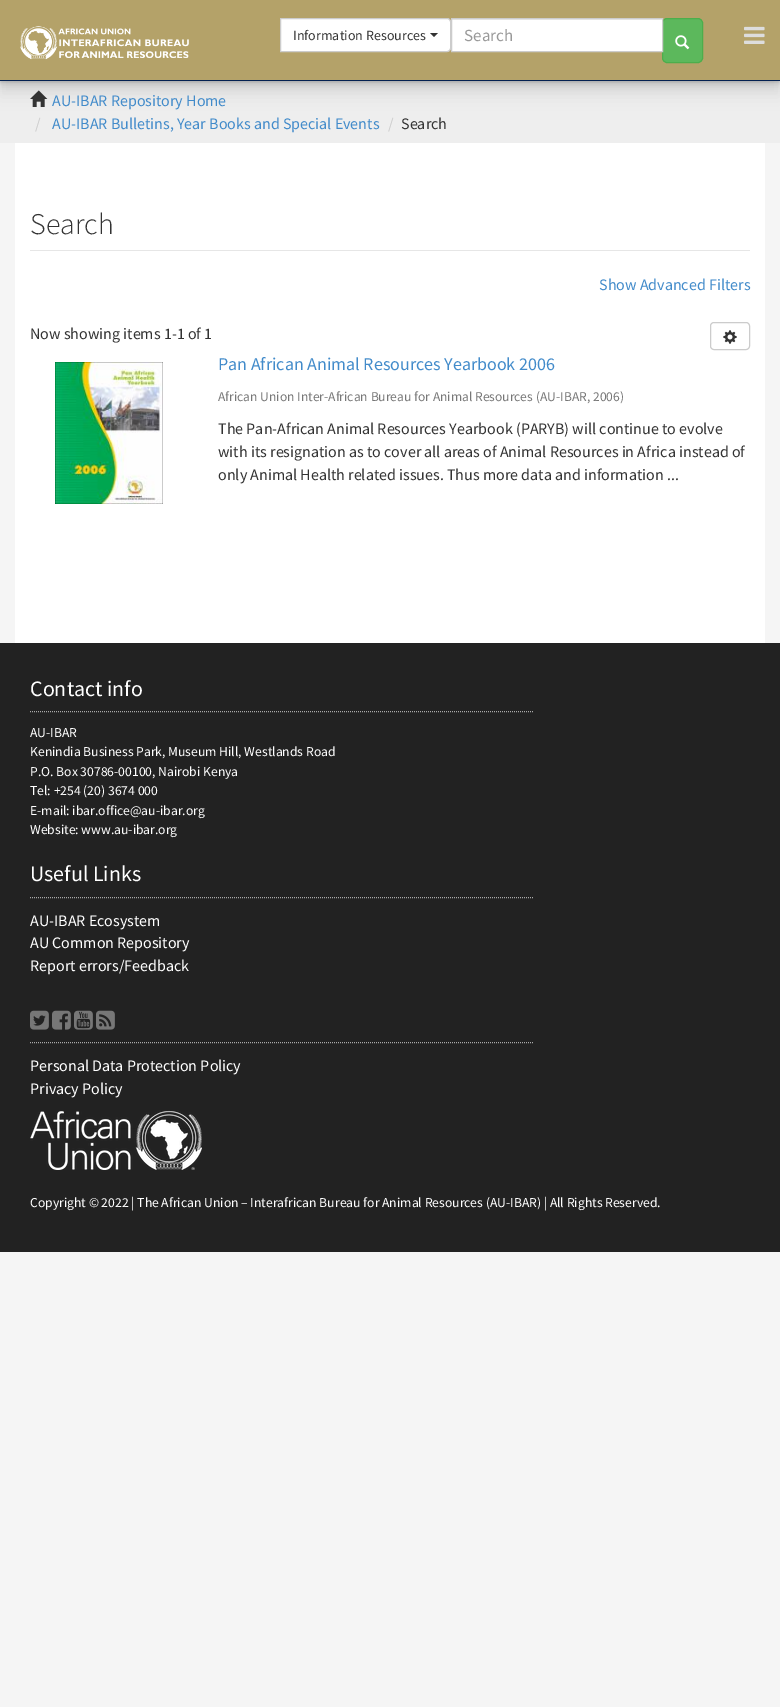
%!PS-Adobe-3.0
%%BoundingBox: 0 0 780 1707
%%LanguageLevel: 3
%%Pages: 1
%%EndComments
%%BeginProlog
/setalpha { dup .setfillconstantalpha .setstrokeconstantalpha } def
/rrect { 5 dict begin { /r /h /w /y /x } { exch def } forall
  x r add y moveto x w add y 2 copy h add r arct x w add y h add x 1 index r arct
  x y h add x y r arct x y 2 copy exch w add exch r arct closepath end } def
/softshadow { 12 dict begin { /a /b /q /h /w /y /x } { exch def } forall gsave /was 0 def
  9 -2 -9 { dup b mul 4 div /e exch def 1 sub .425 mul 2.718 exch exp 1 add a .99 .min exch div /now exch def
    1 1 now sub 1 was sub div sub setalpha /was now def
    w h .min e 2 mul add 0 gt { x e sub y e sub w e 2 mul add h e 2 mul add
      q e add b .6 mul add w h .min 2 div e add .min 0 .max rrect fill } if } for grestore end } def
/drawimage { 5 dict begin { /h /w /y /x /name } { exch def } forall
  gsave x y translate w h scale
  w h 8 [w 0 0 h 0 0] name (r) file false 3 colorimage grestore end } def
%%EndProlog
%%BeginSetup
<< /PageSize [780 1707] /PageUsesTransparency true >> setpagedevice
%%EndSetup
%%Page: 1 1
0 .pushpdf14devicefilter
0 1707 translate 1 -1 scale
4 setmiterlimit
0.961 setgray
0 0 780 1707 rectfill
0.933 setgray
0 81 780 62 rectfill
(images/4.raw) 30 90 18 17 drawimage
0 setgray
0 16 780 81 0 8 0.06 softshadow
0 8 780 81 0 4 0.06 softshadow
0 4 780 81 0 2 0.06 softshadow
0 2 780 81 0 1 0.06 softshadow
0 1 780 81 0 0.5 0.06 softshadow
0.706 0.635 0.412 setrgbcolor
0 0 780 80 rectfill
0.012 0.125 0.318 setrgbcolor
0 80 780 1 rectfill
(images/1.raw) 20 26 169 34 drawimage
1 setgray
newpath 280.5 18.5 moveto 447 18.5 lineto 449 18.5 450.5 20 450.5 22 curveto 450.5 48 lineto 450.5 50 449 51.5 447 51.5 curveto 280.5 51.5 lineto closepath gsave fill grestore
0.8 setgray
stroke
0.2 setgray
newpath 430 33 moveto 438 33 lineto 434 37 lineto closepath fill
1 setgray
452 20 210 31 rectfill
0.925 setgray
452 19 210 1 rectfill
0.361 0.722 0.361 setrgbcolor
662.5 18.5 40 44 4.5 rrect gsave fill grestore
0.298 0.682 0.298 setrgbcolor
stroke
0.8 setgray
451.5 18.5 211 33 rectstroke
(images/2.raw) 675 35 15 15 drawimage
(images/3.raw) 744 26 21 18 drawimage
1 setgray
15 143 750 500 rectfill
0.902 setgray
30 250 720 1 rectfill
0.8 setgray
710.5 322.5 39 27 3.5 rrect stroke
(images/5.raw) 723 330 14 14 drawimage
(images/6.raw) 55 362 108 142 drawimage
0.133 setgray
0 643 780 609 rectfill
0.667 setgray
[1 1] 0 setdash
newpath 30 711.5 moveto 534 711.5 lineto stroke
newpath 30 897.5 moveto 534 897.5 lineto stroke
newpath 30 1042.5 moveto 534 1042.5 lineto stroke
(images/7.raw) 30 1010 19 20 drawimage
(images/8.raw) 52 1010 19 20 drawimage
(images/9.raw) 74 1010 19 20 drawimage
(images/10.raw) 96 1010 19 20 drawimage
(images/11.raw) 30 1110 172 60 drawimage
/SourceSansPro-Regular [14 0 0 -14 0 0] selectfont
0.2 setgray
293 40 moveto (Information Resources) show
/SourceSansPro-Regular [17 0 0 -17 0 0] selectfont
0.6 setgray
464 41 moveto (Search) show
/SourceSansPro-Regular [16 0 0 -16 0 0] selectfont
0.259 0.545 0.792 setrgbcolor
52 106 moveto (AU-IBAR Repository Home) show
0.8 setgray
35 129 moveto (/) show
0.259 0.545 0.792 setrgbcolor
52 129 moveto (AU-IBAR Bulletins, Year Books and Special Events) show
0.8 setgray
388 129 moveto (/) show
0.2 setgray
401 129 moveto (Search) show
/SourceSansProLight-Light [30 0 0 -30 0 0] selectfont
30 234 moveto (Search) show
/SourceSansPro-Regular [16 0 0 -16 0 0] selectfont
0.259 0.545 0.792 setrgbcolor
599 290 moveto (Show Advanced Filters) show
0.2 setgray
30 339 moveto (Now showing items 1-1 of 1) show
/SourceSansPro-Regular [18 0 0 -18 0 0] selectfont
0.259 0.545 0.792 setrgbcolor
218 370 moveto (Pan African Animal Resources Yearbook 2006) show
/SourceSansPro-Regular [13.5 0 0 -13.5 0 0] selectfont
0.467 setgray
218 401 moveto (African Union Inter-African Bureau for Animal Resources) show
536 401 moveto (\(AU-IBAR, 2006\)) show
/SourceSansPro-Regular [16 0 0 -16 0 0] selectfont
0.2 setgray
218 434 moveto (The Pan-African Animal Resources Yearbook \(PARYB\) will continue to evolve) show
218 457 moveto (with its resignation as to cover all areas of Animal Resources in Africa instead of) show
218 480 moveto (only Animal Health related issues. Thus more data and information ...) show
/SourceSansPro-Regular [22 0 0 -22 0 0] selectfont
1 setgray
30 696 moveto (Contact info) show
/SourceSansPro-Regular [13.6 0 0 -13.6 0 0] selectfont
30 737 moveto (AU-IBAR) show
30 756 moveto (Kenindia Business Park, Museum Hill, Westlands Road) show
30 776 moveto (P.O. Box 30786-00100, Nairobi Kenya) show
30 795 moveto (Tel: +254 \(20\) 3674 000) show
30 815 moveto (E-mail: ibar.office@au-ibar.org) show
30 834 moveto (Website: www.au-ibar.org) show
/SourceSansPro-Regular [22 0 0 -22 0 0] selectfont
30 881 moveto (Useful Links) show
/SourceSansPro-Regular [16 0 0 -16 0 0] selectfont
30 926 moveto (AU-IBAR Ecosystem) show
30 948 moveto (AU Common Repository) show
30 971 moveto (Report errors/Feedback) show
30 1071 moveto (Personal Data Protection Policy) show
30 1094 moveto (Privacy Policy) show
/SourceSansPro-Regular [13.6 0 0 -13.6 0 0] selectfont
30 1207 moveto (Copyright © 2022 | The African Union – Interafrican Bureau for Animal Resources \(AU-IBAR\) | All Rights Reserved.) show
.poppdf14devicefilter showpage
%%EOF
